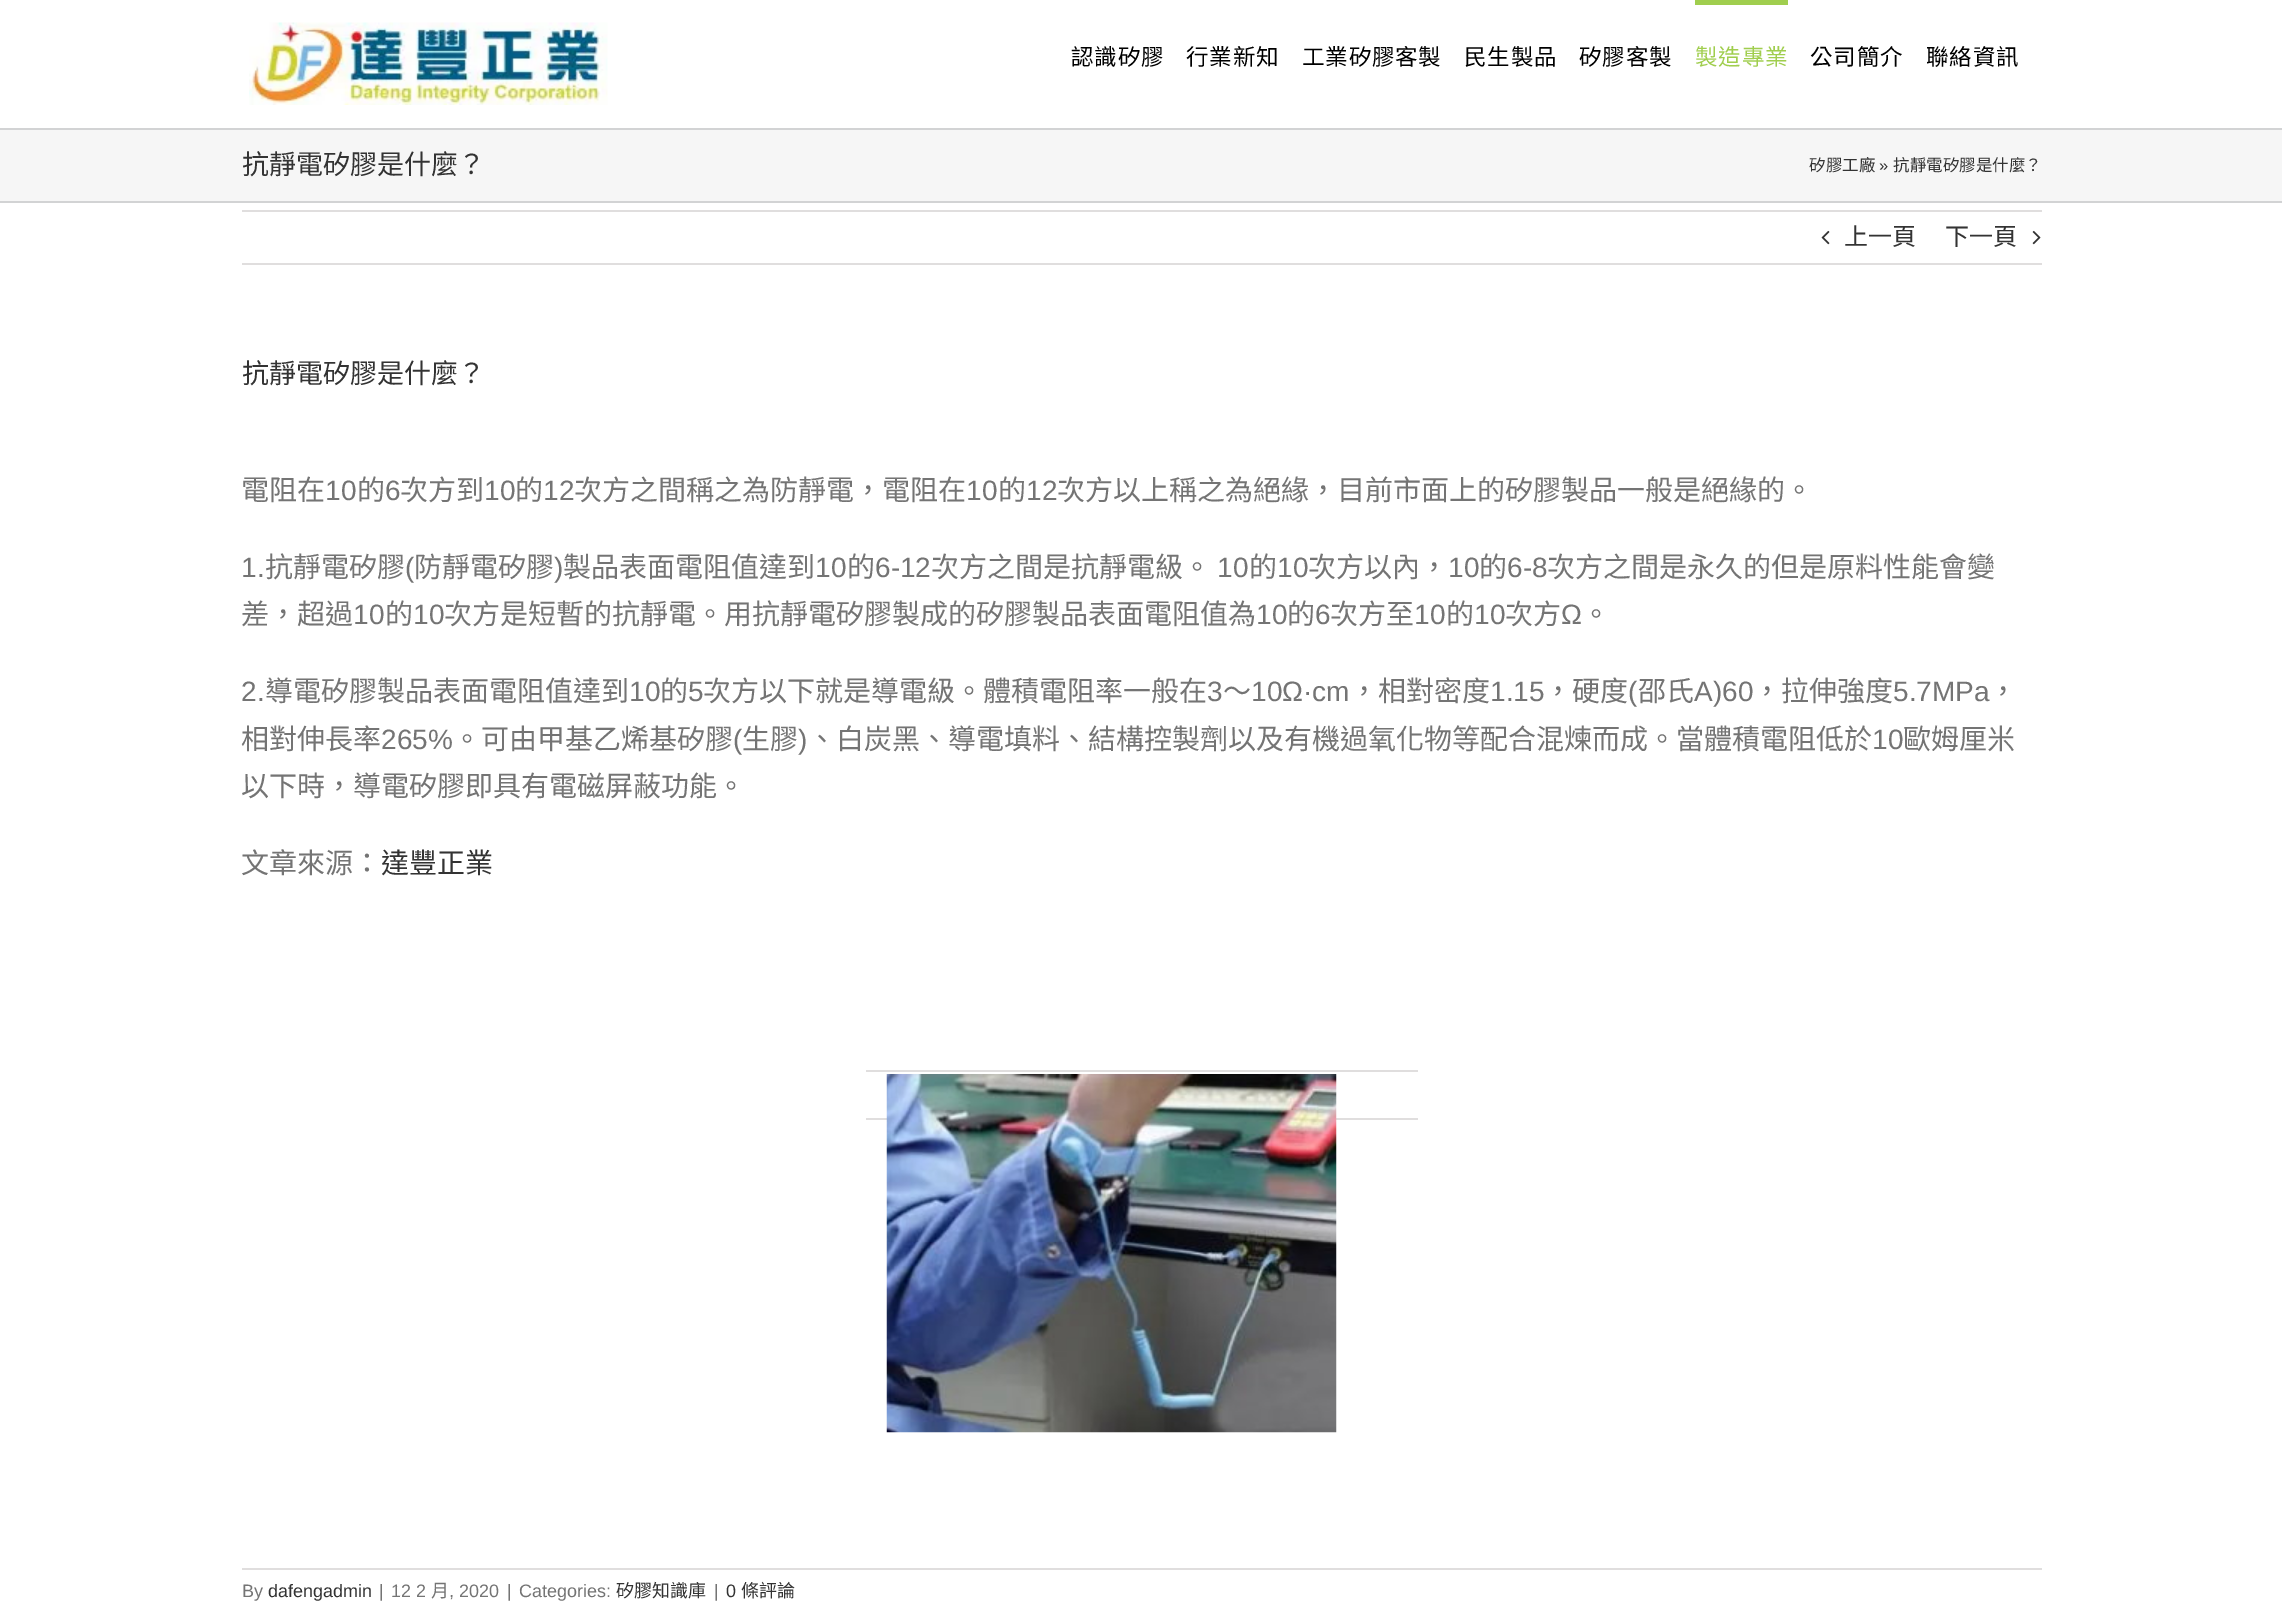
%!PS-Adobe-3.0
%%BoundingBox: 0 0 2282 1604
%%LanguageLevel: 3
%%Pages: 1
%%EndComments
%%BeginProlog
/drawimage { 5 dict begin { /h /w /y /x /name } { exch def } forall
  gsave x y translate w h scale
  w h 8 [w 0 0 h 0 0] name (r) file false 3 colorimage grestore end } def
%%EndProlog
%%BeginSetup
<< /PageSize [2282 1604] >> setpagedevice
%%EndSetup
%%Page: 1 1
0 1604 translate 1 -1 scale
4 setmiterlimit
1 setgray
0 0 2282 1604 rectfill
(images/1.raw) 249 22 359 83 drawimage
0.627 0.808 0.306 setrgbcolor
1695 0 93 5 rectfill
0.965 setgray
0 130 2282 71 rectfill
0.824 0.827 0.831 setrgbcolor
0 128 2282 2 rectfill
0 201 2282 2 rectfill
0.878 0.871 0.871 setrgbcolor
242 210 1800 2 rectfill
242 263 1800 2 rectfill
(images/2.raw) 1821 230 9 15 drawimage
(images/3.raw) 2032 230 9 15 drawimage
866 1070 552 2 rectfill
866 1118 552 2 rectfill
(images/4.raw) 886 1074 451 359 drawimage
242 1568 1800 2 rectfill
/NotoSansTC-Thin [22.5 0 0 -22.5 0 0] selectfont
0 setgray
1071 65 moveto 0.75 0 (認識矽膠) ashow
1186 65 moveto 0.75 0 (行業新知) ashow
1302 65 moveto 0.75 0 (工業矽膠客製) ashow
1464 65 moveto 0.75 0 (民生製品) ashow
1579 65 moveto 0.75 0 (矽膠客製) ashow
0.627 0.808 0.306 setrgbcolor
1695 65 moveto 0.75 0 (製造專業) ashow
0 setgray
1810 65 moveto 0.75 0 (公司簡介) ashow
1926 65 moveto 0.75 0 (聯絡資訊) ashow
/NotoSansCJKTC-Regular [27 0 0 -27 0 0] selectfont
0.2 setgray
242 174 moveto (抗靜電矽膠是什麼？) show
/NotoSansCJKTC-Regular [16.5 0 0 -16.5 0 0] selectfont
1809 171 moveto (矽膠工廠) show
/LiberationSans-Regular [16.5 0 0 -16.5 0 0] selectfont
1879 171 moveto (») show
/NotoSansCJKTC-Regular [16.5 0 0 -16.5 0 0] selectfont
1893 171 moveto (抗靜電矽膠是什麼？) show
/NotoSansCJKTC-Regular [24 0 0 -24 0 0] selectfont
1844 245 moveto (上一頁) show
1945 245 moveto (下一頁) show
/NotoSansCJKTC-Regular [27 0 0 -27 0 0] selectfont
242 383 moveto (抗靜電矽膠是什麼？) show
/NotoSansCJKTC-Regular [28 0 0 -28 0 0] selectfont
0.455 setgray
241 500 moveto (電阻在) show
/LiberationSans-Regular [28 0 0 -28 0 0] selectfont
325 500 moveto (10) show
/NotoSansCJKTC-Regular [28 0 0 -28 0 0] selectfont
357 500 moveto (的) show
/LiberationSans-Regular [28 0 0 -28 0 0] selectfont
385 500 moveto (6) show
/NotoSansCJKTC-Regular [28 0 0 -28 0 0] selectfont
400 500 moveto (次方到) show
/LiberationSans-Regular [28 0 0 -28 0 0] selectfont
484 500 moveto (10) show
/NotoSansCJKTC-Regular [28 0 0 -28 0 0] selectfont
515 500 moveto (的) show
/LiberationSans-Regular [28 0 0 -28 0 0] selectfont
543 500 moveto (12) show
/NotoSansCJKTC-Regular [28 0 0 -28 0 0] selectfont
574 500 moveto (次方之間稱之為防靜電，電阻在) show
/LiberationSans-Regular [28 0 0 -28 0 0] selectfont
966 500 moveto (10) show
/NotoSansCJKTC-Regular [28 0 0 -28 0 0] selectfont
998 500 moveto (的) show
/LiberationSans-Regular [28 0 0 -28 0 0] selectfont
1026 500 moveto (12) show
/NotoSansCJKTC-Regular [28 0 0 -28 0 0] selectfont
1057 500 moveto (次方以上稱之為絕緣，目前市面上的矽膠製品一般是絕緣的。) show
/LiberationSans-Regular [28 0 0 -28 0 0] selectfont
241 577 moveto (1.) show
/NotoSansCJKTC-Regular [28 0 0 -28 0 0] selectfont
265 577 moveto (抗靜電矽膠) show
/LiberationSans-Regular [28 0 0 -28 0 0] selectfont
405 577 moveto (\() show
/NotoSansCJKTC-Regular [28 0 0 -28 0 0] selectfont
414 577 moveto (防靜電矽膠) show
/LiberationSans-Regular [28 0 0 -28 0 0] selectfont
554 577 moveto (\)) show
/NotoSansCJKTC-Regular [28 0 0 -28 0 0] selectfont
563 577 moveto (製品表面電阻值達到) show
/LiberationSans-Regular [28 0 0 -28 0 0] selectfont
815 577 moveto (10) show
/NotoSansCJKTC-Regular [28 0 0 -28 0 0] selectfont
847 577 moveto (的) show
/LiberationSans-Regular [28 0 0 -28 0 0] selectfont
875 577 moveto (6-12) show
/NotoSansCJKTC-Regular [28 0 0 -28 0 0] selectfont
931 577 moveto (次方之間是抗靜電級。) show
/LiberationSans-Regular [28 0 0 -28 0 0] selectfont
1217 577 moveto (10) show
/NotoSansCJKTC-Regular [28 0 0 -28 0 0] selectfont
1249 577 moveto (的) show
/LiberationSans-Regular [28 0 0 -28 0 0] selectfont
1277 577 moveto (10) show
/NotoSansCJKTC-Regular [28 0 0 -28 0 0] selectfont
1308 577 moveto (次方以內，) show
/LiberationSans-Regular [28 0 0 -28 0 0] selectfont
1448 577 moveto (10) show
/NotoSansCJKTC-Regular [28 0 0 -28 0 0] selectfont
1479 577 moveto (的) show
/LiberationSans-Regular [28 0 0 -28 0 0] selectfont
1507 577 moveto (6-8) show
/NotoSansCJKTC-Regular [28 0 0 -28 0 0] selectfont
1547 577 moveto (次方之間是永久的但是原料性能會變) show
241 624 moveto (差，超過) show
/LiberationSans-Regular [28 0 0 -28 0 0] selectfont
353 624 moveto (10) show
/NotoSansCJKTC-Regular [28 0 0 -28 0 0] selectfont
385 624 moveto (的) show
/LiberationSans-Regular [28 0 0 -28 0 0] selectfont
413 624 moveto (10) show
/NotoSansCJKTC-Regular [28 0 0 -28 0 0] selectfont
444 624 moveto (次方是短暫的抗靜電。用抗靜電矽膠製成的矽膠製品表面電阻值為) show
/LiberationSans-Regular [28 0 0 -28 0 0] selectfont
1256 624 moveto (10) show
/NotoSansCJKTC-Regular [28 0 0 -28 0 0] selectfont
1287 624 moveto (的) show
/LiberationSans-Regular [28 0 0 -28 0 0] selectfont
1315 624 moveto (6) show
/NotoSansCJKTC-Regular [28 0 0 -28 0 0] selectfont
1330 624 moveto (次方至) show
/LiberationSans-Regular [28 0 0 -28 0 0] selectfont
1414 624 moveto (10) show
/NotoSansCJKTC-Regular [28 0 0 -28 0 0] selectfont
1446 624 moveto (的) show
/LiberationSans-Regular [28 0 0 -28 0 0] selectfont
1474 624 moveto (10) show
/NotoSansCJKTC-Regular [28 0 0 -28 0 0] selectfont
1505 624 moveto (次方) show
/LiberationSans-Regular [28 0 0 -28 0 0] selectfont
1561 624 moveto (Ω) show
/NotoSansCJKTC-Regular [28 0 0 -28 0 0] selectfont
1582 624 moveto (。) show
/LiberationSans-Regular [28 0 0 -28 0 0] selectfont
241 701 moveto (2.) show
/NotoSansCJKTC-Regular [28 0 0 -28 0 0] selectfont
265 701 moveto (導電矽膠製品表面電阻值達到) show
/LiberationSans-Regular [28 0 0 -28 0 0] selectfont
629 701 moveto (10) show
/NotoSansCJKTC-Regular [28 0 0 -28 0 0] selectfont
660 701 moveto (的) show
/LiberationSans-Regular [28 0 0 -28 0 0] selectfont
688 701 moveto (5) show
/NotoSansCJKTC-Regular [28 0 0 -28 0 0] selectfont
703 701 moveto (次方以下就是導電級。體積電阻率一般在) show
/LiberationSans-Regular [28 0 0 -28 0 0] selectfont
1207 701 moveto (3) show
/NotoSansCJKTC-Regular [28 0 0 -28 0 0] selectfont
1223 701 moveto (～) show
/LiberationSans-Regular [28 0 0 -28 0 0] selectfont
1251 701 moveto (10Ω·cm) show
/NotoSansCJKTC-Regular [28 0 0 -28 0 0] selectfont
1350 701 moveto (，相對密度) show
/LiberationSans-Regular [28 0 0 -28 0 0] selectfont
1490 701 moveto (1.15) show
/NotoSansCJKTC-Regular [28 0 0 -28 0 0] selectfont
1544 701 moveto (，硬度) show
/LiberationSans-Regular [28 0 0 -28 0 0] selectfont
1628 701 moveto (\() show
/NotoSansCJKTC-Regular [28 0 0 -28 0 0] selectfont
1638 701 moveto (邵氏) show
/LiberationSans-Regular [28 0 0 -28 0 0] selectfont
1694 701 moveto (A\)60) show
/NotoSansCJKTC-Regular [28 0 0 -28 0 0] selectfont
1753 701 moveto (，拉伸強度) show
/LiberationSans-Regular [28 0 0 -28 0 0] selectfont
1893 701 moveto (5.7MPa) show
/NotoSansCJKTC-Regular [28 0 0 -28 0 0] selectfont
1989 701 moveto (，) show
241 749 moveto (相對伸長率) show
/LiberationSans-Regular [28 0 0 -28 0 0] selectfont
381 749 moveto (265%) show
/NotoSansCJKTC-Regular [28 0 0 -28 0 0] selectfont
453 749 moveto (。可由甲基乙烯基矽膠) show
/LiberationSans-Regular [28 0 0 -28 0 0] selectfont
733 749 moveto (\() show
/NotoSansCJKTC-Regular [28 0 0 -28 0 0] selectfont
742 749 moveto (生膠) show
/LiberationSans-Regular [28 0 0 -28 0 0] selectfont
798 749 moveto (\)) show
/NotoSansCJKTC-Regular [28 0 0 -28 0 0] selectfont
808 749 moveto (、白炭黑、導電填料、結構控製劑以及有機過氧化物等配合混煉而成。當體積電阻低於) show
/LiberationSans-Regular [28 0 0 -28 0 0] selectfont
1872 749 moveto (10) show
/NotoSansCJKTC-Regular [28 0 0 -28 0 0] selectfont
1903 749 moveto (歐姆厘米) show
241 796 moveto (以下時，導電矽膠即具有電磁屏蔽功能。) show
241 873 moveto (文章來源：) show
0.2 setgray
381 873 moveto (達豐正業) show
/LiberationSans-Regular [18 0 0 -18 0 0] selectfont
0.455 setgray
242 1597 moveto (By) show
0.2 setgray
268 1597 moveto (dafengadmin) show
0.455 setgray
379 1597 moveto (|) show
391 1597 moveto (12 2) show
/NotoSansCJKTC-Regular [18 0 0 -18 0 0] selectfont
431 1597 moveto (月) show
/LiberationSans-Regular [18 0 0 -18 0 0] selectfont
449 1597 moveto (, 2020) show
507 1597 moveto (|) show
519 1597 moveto (Categories:) show
/NotoSansCJKTC-Regular [18 0 0 -18 0 0] selectfont
0.2 setgray
616 1597 moveto (矽膠知識庫) show
/LiberationSans-Regular [18 0 0 -18 0 0] selectfont
0.455 setgray
714 1597 moveto (|) show
0.2 setgray
726 1597 moveto (0) show
/NotoSansCJKTC-Regular [18 0 0 -18 0 0] selectfont
741 1597 moveto (條評論) show
showpage
%%EOF
